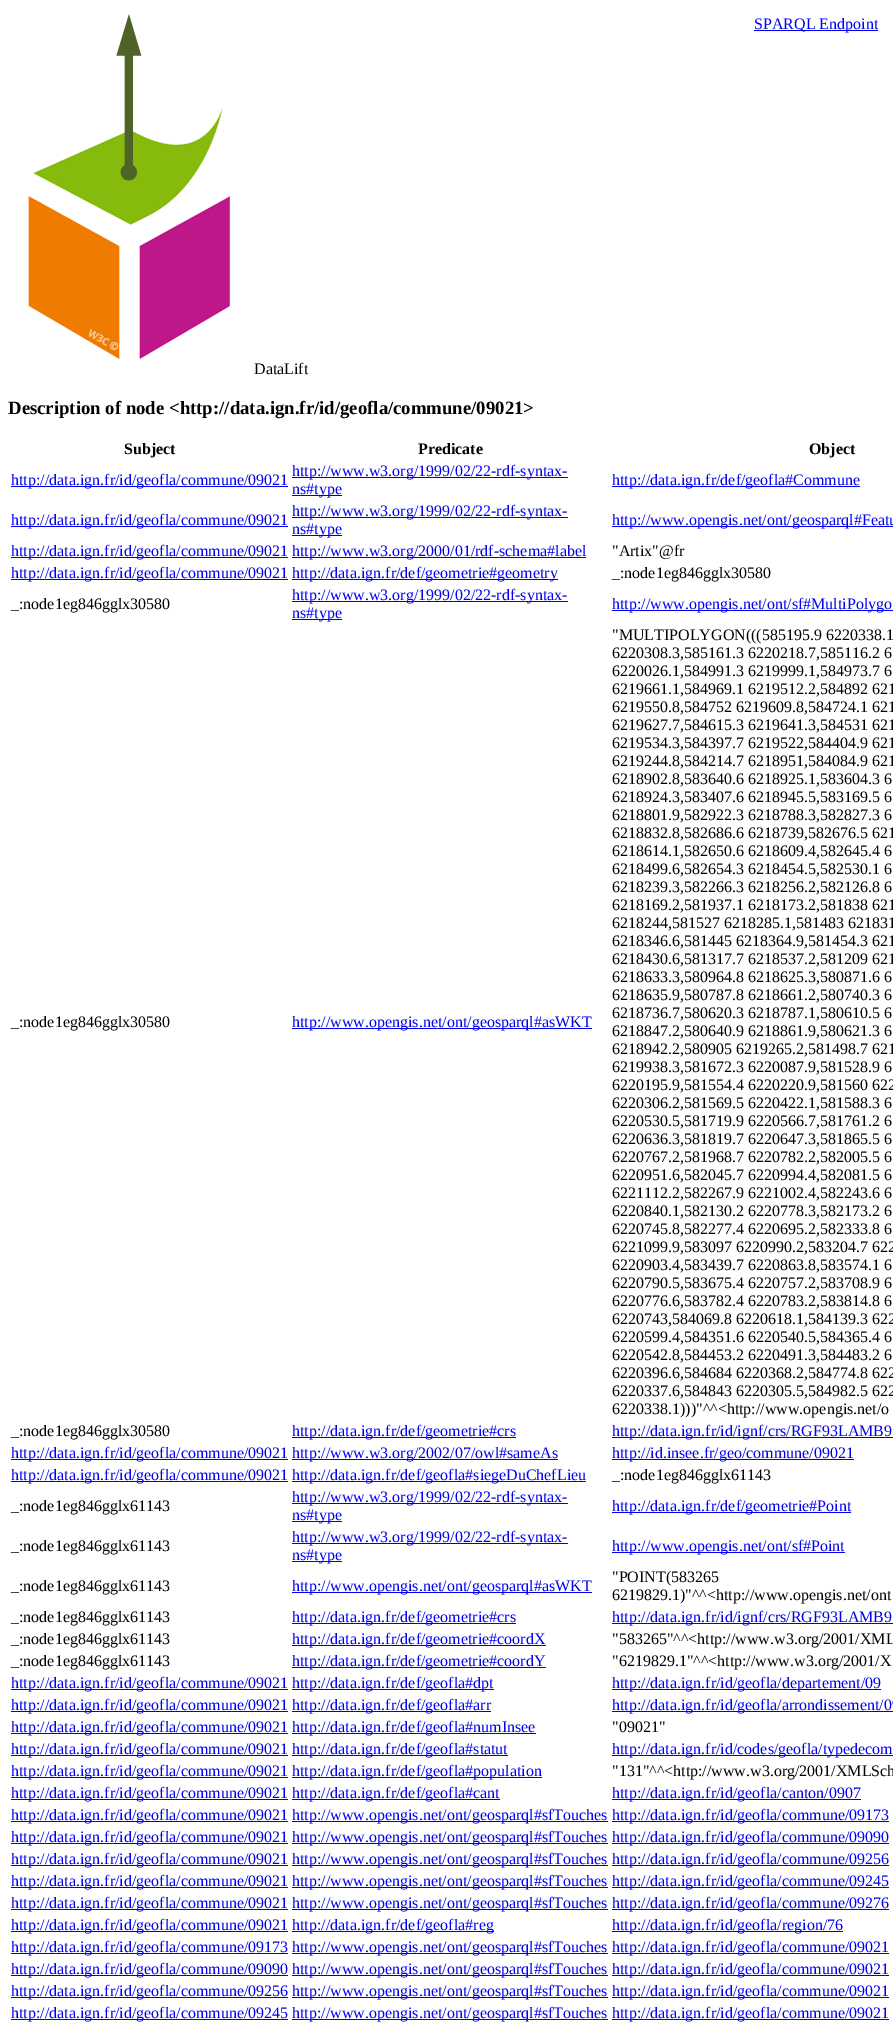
%!PS-Adobe-3.0
%%BoundingBox: 0 0 893 2031
%%LanguageLevel: 3
%%Pages: 1
%%EndComments
%%BeginProlog
/drawimage { 5 dict begin { /h /w /y /x /name } { exch def } forall
  gsave x y translate w h scale
  w h 8 [w 0 0 h 0 0] name (r) file false 3 colorimage grestore end } def
%%EndProlog
%%BeginSetup
<< /PageSize [893 2031] >> setpagedevice
%%EndSetup
%%Page: 1 1
0 2031 translate 1 -1 scale
4 setmiterlimit
1 setgray
0 0 893 2031 rectfill
0 0 0.933 setrgbcolor
754 30 124 1 rectfill
(images/1.raw) 27 14 204 345 drawimage
11 486 277 1 rectfill
292 477 276 1 rectfill
292 495 50 1 rectfill
612 486 248 1 rectfill
11 526 277 1 rectfill
292 517 276 1 rectfill
292 535 50 1 rectfill
612 526 281 1 rectfill
11 557 277 1 rectfill
292 557 294 1 rectfill
11 579 277 1 rectfill
292 579 266 1 rectfill
292 601 276 1 rectfill
292 619 50 1 rectfill
612 610 281 1 rectfill
292 1028 300 1 rectfill
292 1437 224 1 rectfill
612 1437 281 1 rectfill
11 1459 277 1 rectfill
292 1459 266 1 rectfill
612 1459 242 1 rectfill
11 1481 277 1 rectfill
292 1481 294 1 rectfill
292 1503 276 1 rectfill
292 1521 50 1 rectfill
612 1512 239 1 rectfill
292 1543 276 1 rectfill
292 1561 50 1 rectfill
612 1552 233 1 rectfill
292 1592 300 1 rectfill
292 1623 224 1 rectfill
612 1623 281 1 rectfill
292 1645 254 1 rectfill
292 1667 254 1 rectfill
11 1689 277 1 rectfill
292 1689 202 1 rectfill
612 1689 269 1 rectfill
11 1711 277 1 rectfill
292 1711 199 1 rectfill
612 1711 281 1 rectfill
11 1733 277 1 rectfill
292 1733 244 1 rectfill
11 1755 277 1 rectfill
292 1755 216 1 rectfill
612 1755 281 1 rectfill
11 1777 277 1 rectfill
292 1777 250 1 rectfill
11 1799 277 1 rectfill
292 1799 208 1 rectfill
612 1799 249 1 rectfill
11 1821 277 1 rectfill
292 1821 316 1 rectfill
612 1821 277 1 rectfill
11 1843 277 1 rectfill
292 1843 316 1 rectfill
612 1843 277 1 rectfill
11 1865 277 1 rectfill
292 1865 316 1 rectfill
612 1865 277 1 rectfill
11 1887 277 1 rectfill
292 1887 316 1 rectfill
612 1887 277 1 rectfill
11 1909 277 1 rectfill
292 1909 316 1 rectfill
612 1909 277 1 rectfill
11 1931 277 1 rectfill
292 1931 202 1 rectfill
612 1931 231 1 rectfill
11 1953 277 1 rectfill
292 1953 316 1 rectfill
612 1953 277 1 rectfill
11 1975 277 1 rectfill
292 1975 316 1 rectfill
612 1975 277 1 rectfill
11 1997 277 1 rectfill
292 1997 316 1 rectfill
612 1997 277 1 rectfill
11 2019 277 1 rectfill
292 2019 316 1 rectfill
612 2019 277 1 rectfill
/LiberationSerif-Regular [16 0 0 -16 0 0] selectfont
754 29 moveto (SPARQL Endpoint) show
0 setgray
254 374 moveto (DataLift) show
/LiberationSerif-Bold [18.75 0 0 -18.75 0 0] selectfont
8 414 moveto (Description of node <http://data.ign.fr/id/geofla/commune/09021>) show
/LiberationSerif-Bold [16 0 0 -16 0 0] selectfont
124 454 moveto (Subject) show
418 454 moveto (Predicate) show
809 454 moveto (Object) show
/LiberationSerif-Regular [16 0 0 -16 0 0] selectfont
0 0 0.933 setrgbcolor
11 485 moveto (http://data.ign.fr/id/geofla/commune/09021) show
292 476 moveto (http://www.w3.org/1999/02/22-rdf-syntax-) show
292 494 moveto (ns#type) show
612 485 moveto (http://data.ign.fr/def/geofla#Commune) show
11 525 moveto (http://data.ign.fr/id/geofla/commune/09021) show
292 516 moveto (http://www.w3.org/1999/02/22-rdf-syntax-) show
292 534 moveto (ns#type) show
612 525 moveto (http://www.opengis.net/ont/geosparql#Featu) show
11 556 moveto (http://data.ign.fr/id/geofla/commune/09021) show
292 556 moveto (http://www.w3.org/2000/01/rdf-schema#label) show
0 setgray
612 556 moveto ("Artix"@fr) show
0 0 0.933 setrgbcolor
11 578 moveto (http://data.ign.fr/id/geofla/commune/09021) show
292 578 moveto (http://data.ign.fr/def/geometrie#geometry) show
0 setgray
612 578 moveto (_:node1eg846gglx30580) show
11 609 moveto (_:node1eg846gglx30580) show
0 0 0.933 setrgbcolor
292 600 moveto (http://www.w3.org/1999/02/22-rdf-syntax-) show
292 618 moveto (ns#type) show
612 609 moveto (http://www.opengis.net/ont/sf#MultiPolygo) show
0 setgray
11 1027 moveto (_:node1eg846gglx30580) show
0 0 0.933 setrgbcolor
292 1027 moveto (http://www.opengis.net/ont/geosparql#asWKT) show
0 setgray
612 640 moveto ("MULTIPOLYGON\(\(\(585195.9 6220338.1) show
612 658 moveto (6220308.3,585161.3 6220218.7,585116.2 6) show
612 676 moveto (6220026.1,584991.3 6219999.1,584973.7 6) show
612 694 moveto (6219661.1,584969.1 6219512.2,584892 621) show
612 712 moveto (6219550.8,584752 6219609.8,584724.1 621) show
612 730 moveto (6219627.7,584615.3 6219641.3,584531 621) show
612 748 moveto (6219534.3,584397.7 6219522,584404.9 621) show
612 766 moveto (6219244.8,584214.7 6218951,584084.9 621) show
612 784 moveto (6218902.8,583640.6 6218925.1,583604.3 6) show
612 802 moveto (6218924.3,583407.6 6218945.5,583169.5 6) show
612 820 moveto (6218801.9,582922.3 6218788.3,582827.3 6) show
612 838 moveto (6218832.8,582686.6 6218739,582676.5 621) show
612 856 moveto (6218614.1,582650.6 6218609.4,582645.4 6) show
612 874 moveto (6218499.6,582654.3 6218454.5,582530.1 6) show
612 892 moveto (6218239.3,582266.3 6218256.2,582126.8 6) show
612 910 moveto (6218169.2,581937.1 6218173.2,581838 621) show
612 928 moveto (6218244,581527 6218285.1,581483 621831) show
612 946 moveto (6218346.6,581445 6218364.9,581454.3 621) show
612 964 moveto (6218430.6,581317.7 6218537.2,581209 621) show
612 982 moveto (6218633.3,580964.8 6218625.3,580871.6 6) show
612 1000 moveto (6218635.9,580787.8 6218661.2,580740.3 6) show
612 1018 moveto (6218736.7,580620.3 6218787.1,580610.5 6) show
612 1036 moveto (6218847.2,580640.9 6218861.9,580621.3 6) show
612 1054 moveto (6218942.2,580905 6219265.2,581498.7 621) show
612 1072 moveto (6219938.3,581672.3 6220087.9,581528.9 6) show
612 1090 moveto (6220195.9,581554.4 6220220.9,581560 622) show
612 1108 moveto (6220306.2,581569.5 6220422.1,581588.3 6) show
612 1126 moveto (6220530.5,581719.9 6220566.7,581761.2 6) show
612 1144 moveto (6220636.3,581819.7 6220647.3,581865.5 6) show
612 1162 moveto (6220767.2,581968.7 6220782.2,582005.5 6) show
612 1180 moveto (6220951.6,582045.7 6220994.4,582081.5 6) show
612 1198 moveto (6221112.2,582267.9 6221002.4,582243.6 6) show
612 1216 moveto (6220840.1,582130.2 6220778.3,582173.2 6) show
612 1234 moveto (6220745.8,582277.4 6220695.2,582333.8 6) show
612 1252 moveto (6221099.9,583097 6220990.2,583204.7 622) show
612 1270 moveto (6220903.4,583439.7 6220863.8,583574.1 6) show
612 1288 moveto (6220790.5,583675.4 6220757.2,583708.9 6) show
612 1306 moveto (6220776.6,583782.4 6220783.2,583814.8 6) show
612 1324 moveto (6220743,584069.8 6220618.1,584139.3 622) show
612 1342 moveto (6220599.4,584351.6 6220540.5,584365.4 6) show
612 1360 moveto (6220542.8,584453.2 6220491.3,584483.2 6) show
612 1378 moveto (6220396.6,584684 6220368.2,584774.8 622) show
612 1396 moveto (6220337.6,584843 6220305.5,584982.5 622) show
612 1414 moveto (6220338.1\)\)\)"^^<http://www.opengis.net/o) show
11 1436 moveto (_:node1eg846gglx30580) show
0 0 0.933 setrgbcolor
292 1436 moveto (http://data.ign.fr/def/geometrie#crs) show
612 1436 moveto (http://data.ign.fr/id/ignf/crs/RGF93LAMB9) show
11 1458 moveto (http://data.ign.fr/id/geofla/commune/09021) show
292 1458 moveto (http://www.w3.org/2002/07/owl#sameAs) show
612 1458 moveto (http://id.insee.fr/geo/commune/09021) show
11 1480 moveto (http://data.ign.fr/id/geofla/commune/09021) show
292 1480 moveto (http://data.ign.fr/def/geofla#siegeDuChefLieu) show
0 setgray
612 1480 moveto (_:node1eg846gglx61143) show
11 1511 moveto (_:node1eg846gglx61143) show
0 0 0.933 setrgbcolor
292 1502 moveto (http://www.w3.org/1999/02/22-rdf-syntax-) show
292 1520 moveto (ns#type) show
612 1511 moveto (http://data.ign.fr/def/geometrie#Point) show
0 setgray
11 1551 moveto (_:node1eg846gglx61143) show
0 0 0.933 setrgbcolor
292 1542 moveto (http://www.w3.org/1999/02/22-rdf-syntax-) show
292 1560 moveto (ns#type) show
612 1551 moveto (http://www.opengis.net/ont/sf#Point) show
0 setgray
11 1591 moveto (_:node1eg846gglx61143) show
0 0 0.933 setrgbcolor
292 1591 moveto (http://www.opengis.net/ont/geosparql#asWKT) show
0 setgray
612 1582 moveto ("POINT\(583265) show
612 1600 moveto (6219829.1\)"^^<http://www.opengis.net/ont) show
11 1622 moveto (_:node1eg846gglx61143) show
0 0 0.933 setrgbcolor
292 1622 moveto (http://data.ign.fr/def/geometrie#crs) show
612 1622 moveto (http://data.ign.fr/id/ignf/crs/RGF93LAMB9) show
0 setgray
11 1644 moveto (_:node1eg846gglx61143) show
0 0 0.933 setrgbcolor
292 1644 moveto (http://data.ign.fr/def/geometrie#coordX) show
0 setgray
612 1644 moveto ("583265"^^<http://www.w3.org/2001/XML) show
11 1666 moveto (_:node1eg846gglx61143) show
0 0 0.933 setrgbcolor
292 1666 moveto (http://data.ign.fr/def/geometrie#coordY) show
0 setgray
612 1666 moveto ("6219829.1"^^<http://www.w3.org/2001/X) show
0 0 0.933 setrgbcolor
11 1688 moveto (http://data.ign.fr/id/geofla/commune/09021) show
292 1688 moveto (http://data.ign.fr/def/geofla#dpt) show
612 1688 moveto (http://data.ign.fr/id/geofla/departement/09) show
11 1710 moveto (http://data.ign.fr/id/geofla/commune/09021) show
292 1710 moveto (http://data.ign.fr/def/geofla#arr) show
612 1710 moveto (http://data.ign.fr/id/geofla/arrondissement/09) show
11 1732 moveto (http://data.ign.fr/id/geofla/commune/09021) show
292 1732 moveto (http://data.ign.fr/def/geofla#numInsee) show
0 setgray
612 1732 moveto ("09021") show
0 0 0.933 setrgbcolor
11 1754 moveto (http://data.ign.fr/id/geofla/commune/09021) show
292 1754 moveto (http://data.ign.fr/def/geofla#statut) show
612 1754 moveto (http://data.ign.fr/id/codes/geofla/typedecom) show
11 1776 moveto (http://data.ign.fr/id/geofla/commune/09021) show
292 1776 moveto (http://data.ign.fr/def/geofla#population) show
0 setgray
612 1776 moveto ("131"^^<http://www.w3.org/2001/XMLSch) show
0 0 0.933 setrgbcolor
11 1798 moveto (http://data.ign.fr/id/geofla/commune/09021) show
292 1798 moveto (http://data.ign.fr/def/geofla#cant) show
612 1798 moveto (http://data.ign.fr/id/geofla/canton/0907) show
11 1820 moveto (http://data.ign.fr/id/geofla/commune/09021) show
292 1820 moveto (http://www.opengis.net/ont/geosparql#sfTouches) show
612 1820 moveto (http://data.ign.fr/id/geofla/commune/09173) show
11 1842 moveto (http://data.ign.fr/id/geofla/commune/09021) show
292 1842 moveto (http://www.opengis.net/ont/geosparql#sfTouches) show
612 1842 moveto (http://data.ign.fr/id/geofla/commune/09090) show
11 1864 moveto (http://data.ign.fr/id/geofla/commune/09021) show
292 1864 moveto (http://www.opengis.net/ont/geosparql#sfTouches) show
612 1864 moveto (http://data.ign.fr/id/geofla/commune/09256) show
11 1886 moveto (http://data.ign.fr/id/geofla/commune/09021) show
292 1886 moveto (http://www.opengis.net/ont/geosparql#sfTouches) show
612 1886 moveto (http://data.ign.fr/id/geofla/commune/09245) show
11 1908 moveto (http://data.ign.fr/id/geofla/commune/09021) show
292 1908 moveto (http://www.opengis.net/ont/geosparql#sfTouches) show
612 1908 moveto (http://data.ign.fr/id/geofla/commune/09276) show
11 1930 moveto (http://data.ign.fr/id/geofla/commune/09021) show
292 1930 moveto (http://data.ign.fr/def/geofla#reg) show
612 1930 moveto (http://data.ign.fr/id/geofla/region/76) show
11 1952 moveto (http://data.ign.fr/id/geofla/commune/09173) show
292 1952 moveto (http://www.opengis.net/ont/geosparql#sfTouches) show
612 1952 moveto (http://data.ign.fr/id/geofla/commune/09021) show
11 1974 moveto (http://data.ign.fr/id/geofla/commune/09090) show
292 1974 moveto (http://www.opengis.net/ont/geosparql#sfTouches) show
612 1974 moveto (http://data.ign.fr/id/geofla/commune/09021) show
11 1996 moveto (http://data.ign.fr/id/geofla/commune/09256) show
292 1996 moveto (http://www.opengis.net/ont/geosparql#sfTouches) show
612 1996 moveto (http://data.ign.fr/id/geofla/commune/09021) show
11 2018 moveto (http://data.ign.fr/id/geofla/commune/09245) show
292 2018 moveto (http://www.opengis.net/ont/geosparql#sfTouches) show
612 2018 moveto (http://data.ign.fr/id/geofla/commune/09021) show
showpage
%%EOF
